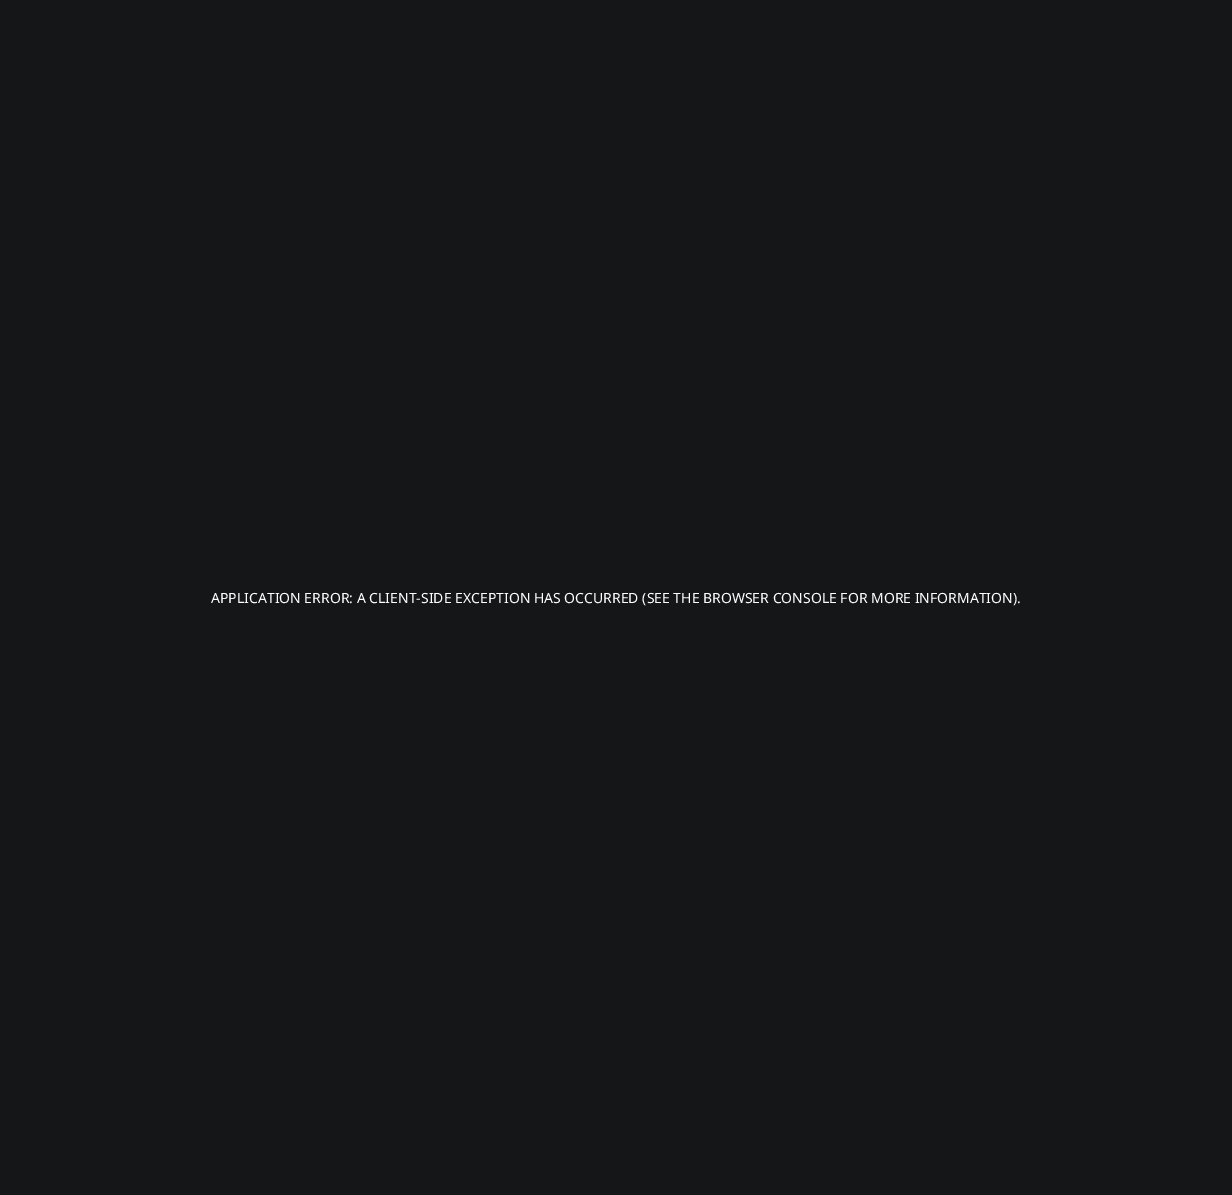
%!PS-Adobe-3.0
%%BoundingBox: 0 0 1232 1195
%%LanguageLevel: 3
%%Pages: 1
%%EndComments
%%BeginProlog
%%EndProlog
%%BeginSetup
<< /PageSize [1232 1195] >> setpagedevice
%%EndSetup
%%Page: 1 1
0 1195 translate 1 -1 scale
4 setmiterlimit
0.082 0.086 0.09 setrgbcolor
0 0 1232 1195 rectfill
/NotoSans-Regular [14 0 0 -14 0 0] selectfont
1 setgray
211 603 moveto (APPLICATION ERROR: A CLIENT-SIDE EXCEPTION HAS OCCURRED \(SEE THE BROWSER CONSOLE FOR MORE INFORMATION\).) show
showpage
%%EOF
